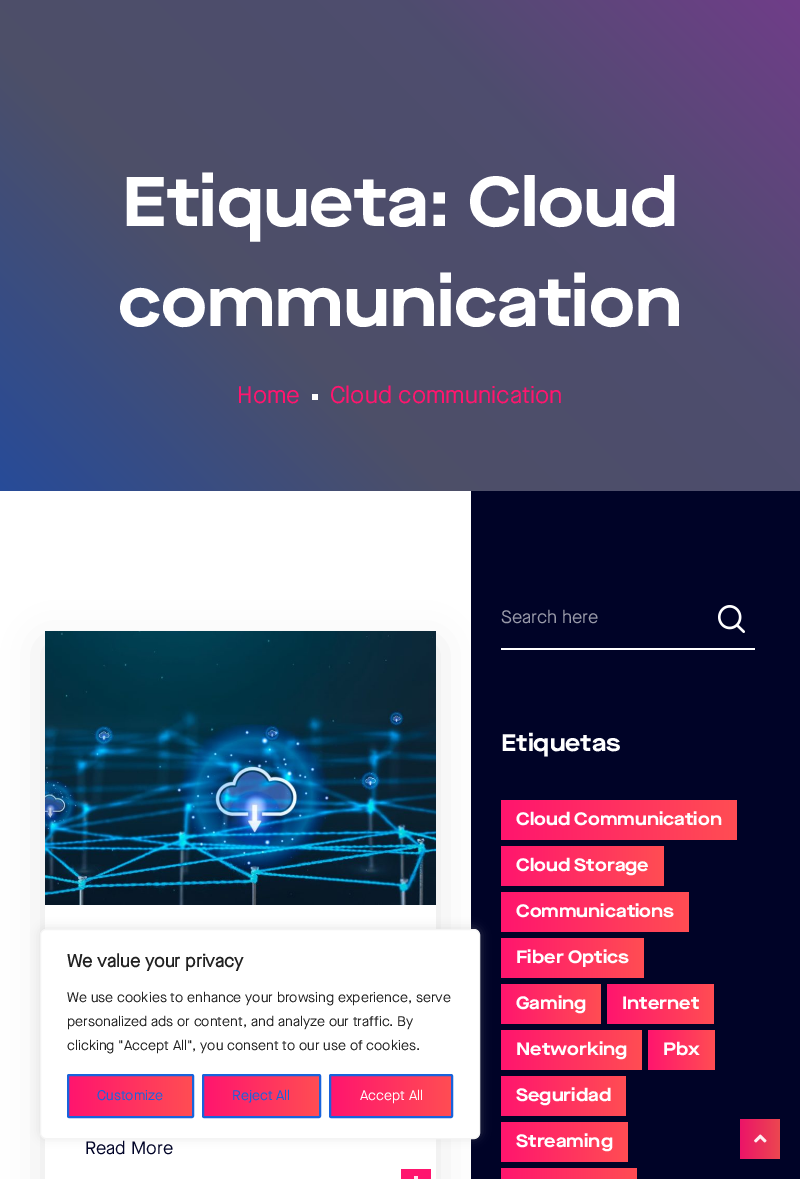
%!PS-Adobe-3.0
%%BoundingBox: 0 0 800 1179
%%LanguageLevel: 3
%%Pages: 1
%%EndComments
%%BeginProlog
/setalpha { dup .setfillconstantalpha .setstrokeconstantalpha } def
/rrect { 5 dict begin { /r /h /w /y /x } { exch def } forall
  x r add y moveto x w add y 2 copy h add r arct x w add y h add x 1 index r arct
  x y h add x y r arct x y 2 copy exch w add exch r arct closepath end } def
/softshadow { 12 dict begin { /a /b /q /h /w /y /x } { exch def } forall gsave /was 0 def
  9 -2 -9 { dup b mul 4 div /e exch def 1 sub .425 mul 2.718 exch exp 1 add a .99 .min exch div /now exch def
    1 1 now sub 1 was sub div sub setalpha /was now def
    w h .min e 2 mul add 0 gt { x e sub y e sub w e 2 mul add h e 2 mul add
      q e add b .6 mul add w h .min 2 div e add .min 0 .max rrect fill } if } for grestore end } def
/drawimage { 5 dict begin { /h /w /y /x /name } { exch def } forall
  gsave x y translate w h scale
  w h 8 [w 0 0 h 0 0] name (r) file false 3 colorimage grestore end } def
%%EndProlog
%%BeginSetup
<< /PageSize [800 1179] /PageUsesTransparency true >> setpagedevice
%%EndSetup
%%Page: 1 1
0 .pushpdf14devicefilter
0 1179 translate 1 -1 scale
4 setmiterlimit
1 setgray
0 0 800 1179 rectfill
gsave newpath 0 0 moveto 800 0 lineto 800 491 lineto 0 491 lineto closepath clip newpath
<< /ShadingType 2 /ColorSpace /DeviceRGB /Coords [-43 448 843 -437] /Extend [true true] /Function << /FunctionType 3 /Domain [0 1] /Functions [<< /FunctionType 2 /Domain [0 1] /C0 [0.153 0.294 0.6] /C1 [0.302 0.31 0.408] /N 1 >> << /FunctionType 2 /Domain [0 1] /C0 [0.302 0.31 0.408] /C1 [0.306 0.302 0.431] /N 1 >> << /FunctionType 2 /Domain [0 1] /C0 [0.306 0.302 0.431] /C1 [0.596 0.161 0.667] /N 1 >>] /Bounds [0.25 0.5] /Encode [0 1 0 1 0 1] >> >> shfill grestore
312 394 6 6 rectfill
gsave
newpath 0 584 moveto 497 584 lineto 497 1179 lineto 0 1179 lineto closepath 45 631 moveto 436 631 lineto 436 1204 lineto 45 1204 lineto closepath eoclip newpath
0 setgray
45 645 391 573 0 20 0.1 softshadow
grestore
(images/1.raw) 45 631 391 274 drawimage
1 0.082 0.431 setrgbcolor
401 1169 30 10 rectfill
1 0.89 0.933 setrgbcolor
414 1176 4 3 rectfill
0 0.012 0.153 setrgbcolor
471 491 329 688 rectfill
(images/2.raw) 718 605 27 28 drawimage
1 setgray
501 648 254 2 rectfill
gsave newpath 501 800 moveto 737 800 lineto 737 840 lineto 501 840 lineto closepath clip newpath
<< /ShadingType 2 /ColorSpace /DeviceRGB /Coords [501 820 737 820] /Extend [true true] /Function << /FunctionType 2 /Domain [0 1] /C0 [1 0.082 0.431] /C1 [1 0.302 0.325] /N 1 >> >> shfill grestore
gsave newpath 501 846 moveto 664 846 lineto 664 886 lineto 501 886 lineto closepath clip newpath
<< /ShadingType 2 /ColorSpace /DeviceRGB /Coords [501 866 664 866] /Extend [true true] /Function << /FunctionType 2 /Domain [0 1] /C0 [1 0.082 0.431] /C1 [1 0.302 0.325] /N 1 >> >> shfill grestore
gsave newpath 501 892 moveto 689 892 lineto 689 932 lineto 501 932 lineto closepath clip newpath
<< /ShadingType 2 /ColorSpace /DeviceRGB /Coords [501 912 689 912] /Extend [true true] /Function << /FunctionType 2 /Domain [0 1] /C0 [1 0.082 0.431] /C1 [1 0.302 0.325] /N 1 >> >> shfill grestore
gsave newpath 501 938 moveto 644 938 lineto 644 978 lineto 501 978 lineto closepath clip newpath
<< /ShadingType 2 /ColorSpace /DeviceRGB /Coords [501 958 644 958] /Extend [true true] /Function << /FunctionType 2 /Domain [0 1] /C0 [1 0.082 0.431] /C1 [1 0.302 0.325] /N 1 >> >> shfill grestore
gsave newpath 501 984 moveto 601 984 lineto 601 1024 lineto 501 1024 lineto closepath clip newpath
<< /ShadingType 2 /ColorSpace /DeviceRGB /Coords [501 1004 601 1004] /Extend [true true] /Function << /FunctionType 2 /Domain [0 1] /C0 [1 0.082 0.431] /C1 [1 0.302 0.325] /N 1 >> >> shfill grestore
gsave newpath 607 984 moveto 714 984 lineto 714 1024 lineto 607 1024 lineto closepath clip newpath
<< /ShadingType 2 /ColorSpace /DeviceRGB /Coords [607 1004 714 1004] /Extend [true true] /Function << /FunctionType 2 /Domain [0 1] /C0 [1 0.082 0.431] /C1 [1 0.302 0.325] /N 1 >> >> shfill grestore
gsave newpath 501 1030 moveto 642 1030 lineto 642 1070 lineto 501 1070 lineto closepath clip newpath
<< /ShadingType 2 /ColorSpace /DeviceRGB /Coords [501 1050 642 1050] /Extend [true true] /Function << /FunctionType 2 /Domain [0 1] /C0 [1 0.082 0.431] /C1 [1 0.302 0.325] /N 1 >> >> shfill grestore
gsave newpath 648 1030 moveto 715 1030 lineto 715 1070 lineto 648 1070 lineto closepath clip newpath
<< /ShadingType 2 /ColorSpace /DeviceRGB /Coords [648 1050 715 1050] /Extend [true true] /Function << /FunctionType 2 /Domain [0 1] /C0 [1 0.082 0.431] /C1 [1 0.302 0.325] /N 1 >> >> shfill grestore
gsave newpath 501 1076 moveto 626 1076 lineto 626 1116 lineto 501 1116 lineto closepath clip newpath
<< /ShadingType 2 /ColorSpace /DeviceRGB /Coords [501 1096 626 1096] /Extend [true true] /Function << /FunctionType 2 /Domain [0 1] /C0 [1 0.082 0.431] /C1 [1 0.302 0.325] /N 1 >> >> shfill grestore
gsave newpath 501 1122 moveto 628 1122 lineto 628 1162 lineto 501 1162 lineto closepath clip newpath
<< /ShadingType 2 /ColorSpace /DeviceRGB /Coords [501 1142 628 1142] /Extend [true true] /Function << /FunctionType 2 /Domain [0 1] /C0 [1 0.082 0.431] /C1 [1 0.302 0.325] /N 1 >> >> shfill grestore
gsave newpath 501 1168 moveto 637 1168 lineto 637 1179 lineto 501 1179 lineto closepath clip newpath
<< /ShadingType 2 /ColorSpace /DeviceRGB /Coords [501 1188 637 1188] /Extend [true true] /Function << /FunctionType 2 /Domain [0 1] /C0 [1 0.082 0.431] /C1 [1 0.302 0.325] /N 1 >> >> shfill grestore
0.675 0.671 0.671 setrgbcolor
40 928 440 210 6 5 0.3 softshadow
1 setgray
40.5 929.5 439 209 5.5 rrect gsave fill grestore
0.957 setgray
stroke
gsave newpath 69 1076 moveto 192 1076 lineto 192 1116 lineto 69 1116 lineto closepath clip newpath
<< /ShadingType 2 /ColorSpace /DeviceRGB /Coords [69 1096 192 1096] /Extend [true true] /Function << /FunctionType 2 /Domain [0 1] /C0 [1 0.082 0.431] /C1 [1 0.302 0.325] /N 1 >> >> shfill grestore
0.094 0.388 0.863 setrgbcolor
2 setlinewidth
68 1075 125 42 1 rrect stroke
gsave newpath 204 1076 moveto 319 1076 lineto 319 1116 lineto 204 1116 lineto closepath clip newpath
<< /ShadingType 2 /ColorSpace /DeviceRGB /Coords [204 1096 319 1096] /Extend [true true] /Function << /FunctionType 2 /Domain [0 1] /C0 [1 0.082 0.431] /C1 [1 0.302 0.325] /N 1 >> >> shfill grestore
203 1075 117 42 1 rrect stroke
gsave newpath 331 1076 moveto 451 1076 lineto 451 1116 lineto 331 1116 lineto closepath clip newpath
<< /ShadingType 2 /ColorSpace /DeviceRGB /Coords [331 1096 451 1096] /Extend [true true] /Function << /FunctionType 2 /Domain [0 1] /C0 [1 0.082 0.431] /C1 [1 0.302 0.325] /N 1 >> >> shfill grestore
330 1075 122 42 1 rrect stroke
gsave newpath 740 1119 moveto 780 1119 lineto 780 1159 lineto 740 1159 lineto closepath clip newpath
<< /ShadingType 2 /ColorSpace /DeviceRGB /Coords [740 1139 780 1139] /Extend [true true] /Function << /FunctionType 2 /Domain [0 1] /C0 [0.922 0.078 0.408] /C1 [0.922 0.278 0.314] /N 1 >> >> shfill grestore
(images/3.raw) 754 1134 13 9 drawimage
/MaisonNeue-Bold [70 0 0 -70 0 0] selectfont
1 setgray
122 226 moveto (Etiqueta: Cloud) show
118 326 moveto (communication) show
/MaisonNeue-Regular [24 0 0 -24 0 0] selectfont
1 0.082 0.431 setrgbcolor
237 403 moveto (Home) show
330 403 moveto (Cloud communication) show
/MaisonNeue-Regular [18 0 0 -18 0 0] selectfont
0 0.012 0.153 setrgbcolor
85 1154 moveto (Read More) show
0.6 0.604 0.663 setrgbcolor
501 623 moveto (Search here) show
/MaisonNeue-Bold [24 0 0 -24 0 0] selectfont
1 setgray
501 751 moveto (Etiquetas) show
/MaisonNeue-Bold [18 0 0 -18 0 0] selectfont
516 825 moveto (Cloud Communication) show
516 871 moveto (Cloud Storage) show
516 917 moveto (Communications) show
516 963 moveto (Fiber Optics) show
516 1009 moveto (Gaming) show
622 1009 moveto (Internet) show
516 1055 moveto (Networking) show
663 1055 moveto (Pbx) show
516 1101 moveto (Seguridad) show
516 1147 moveto (Streaming) show
/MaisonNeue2-Bold [18 0 0 -18 0 0] selectfont
0.129 setgray
67 967 moveto (We value your privacy) show
/MaisonNeue-Regular [14 0 0 -14 0 0] selectfont
67 1002 moveto (We use cookies to enhance your browsing experience, serve) show
67 1026 moveto (personalized ads or content, and analyze our traffic. By) show
67 1050 moveto (clicking "Accept All", you consent to our use of cookies.) show
0.094 0.388 0.863 setrgbcolor
97 1100 moveto (Customize) show
232 1100 moveto (Reject All) show
1 setgray
360 1100 moveto (Accept All) show
.poppdf14devicefilter showpage
%%EOF
